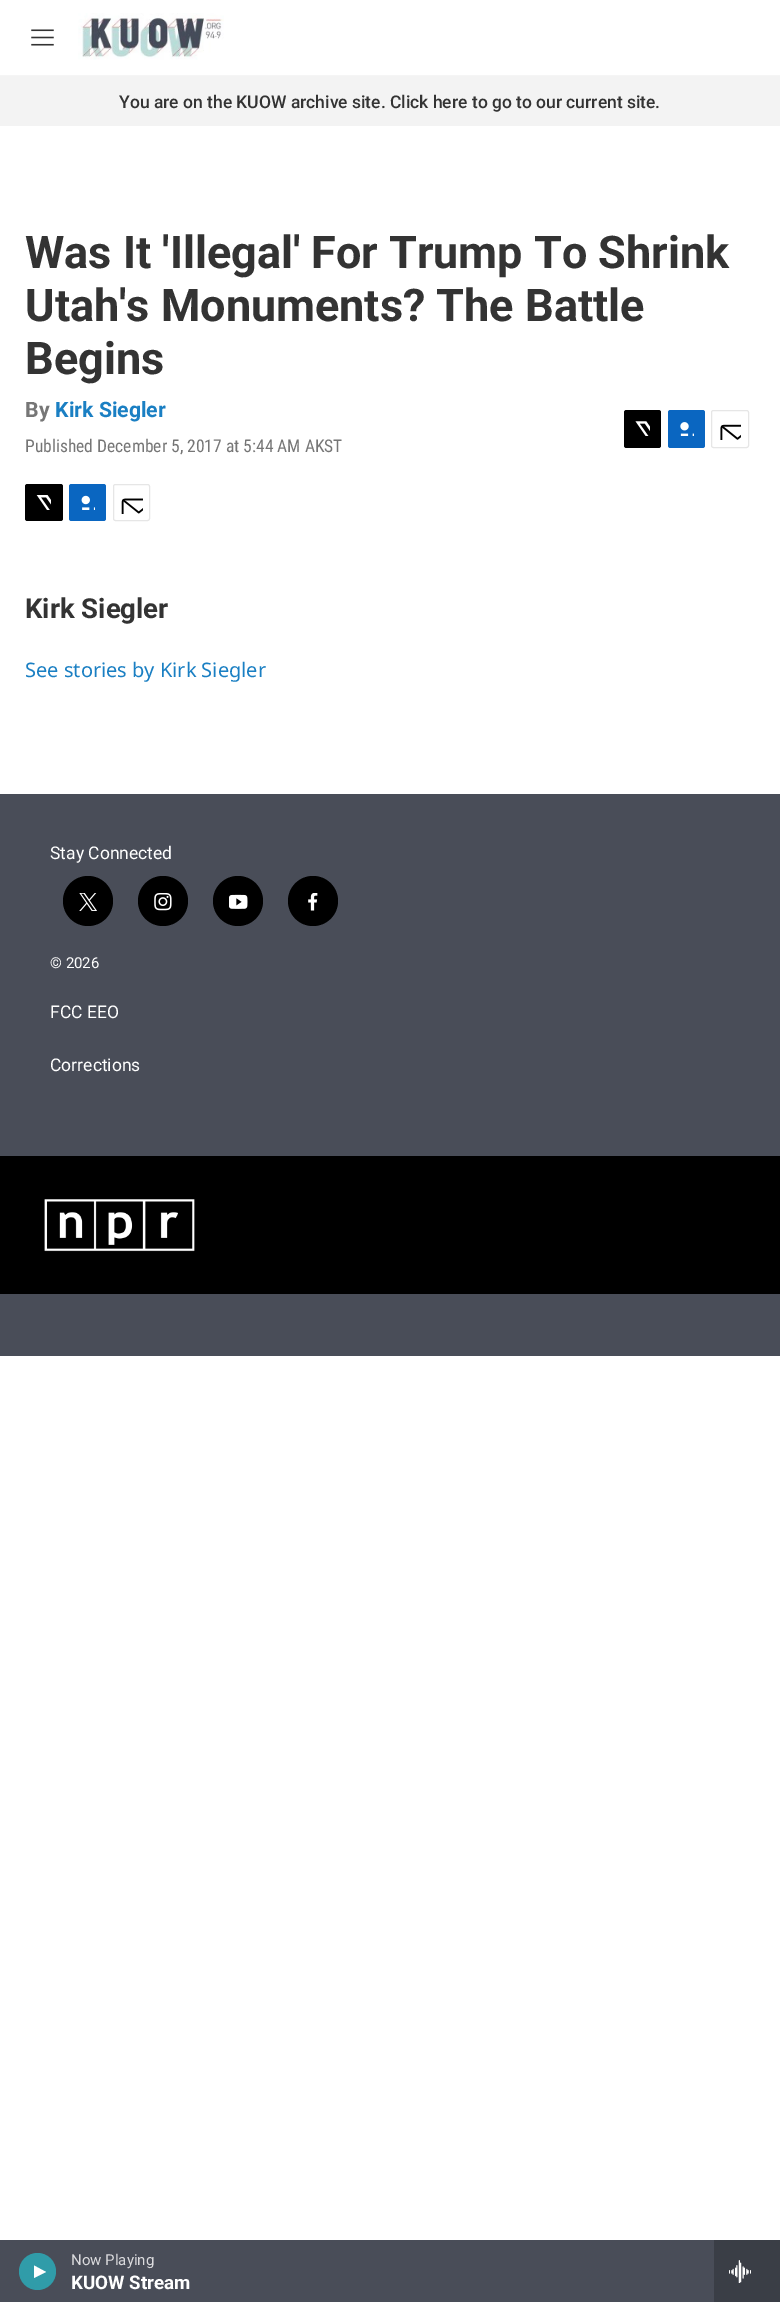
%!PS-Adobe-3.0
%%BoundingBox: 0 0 780 2302
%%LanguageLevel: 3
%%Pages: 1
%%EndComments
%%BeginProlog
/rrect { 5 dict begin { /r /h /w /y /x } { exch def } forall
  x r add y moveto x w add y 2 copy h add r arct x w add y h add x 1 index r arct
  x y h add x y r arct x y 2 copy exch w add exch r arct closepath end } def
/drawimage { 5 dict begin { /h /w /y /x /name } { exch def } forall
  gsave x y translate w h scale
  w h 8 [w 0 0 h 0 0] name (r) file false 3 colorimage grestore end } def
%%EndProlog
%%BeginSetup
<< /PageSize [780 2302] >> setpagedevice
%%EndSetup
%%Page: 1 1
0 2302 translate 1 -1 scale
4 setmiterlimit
1 setgray
0 0 780 2302 rectfill
0.953 setgray
0 76 780 50 rectfill
0 setgray
624 410 37 38 2.5 rrect fill
(images/1.raw) 635 421 15 15 drawimage
0.039 0.4 0.757 setrgbcolor
668 410 37 38 2.5 rrect fill
(images/2.raw) 680 422 14 14 drawimage
0.902 setgray
711.5 410.5 37 37 2 rrect stroke
(images/3.raw) 720 424 21 16 drawimage
0 setgray
25 484 38 37 2.5 rrect fill
(images/4.raw) 36 495 15 15 drawimage
0.039 0.4 0.757 setrgbcolor
69 484 37 37 2.5 rrect fill
(images/5.raw) 81 495 14 15 drawimage
0.902 setgray
113.5 484.5 36 36 2 rrect stroke
(images/6.raw) 121 498 22 16 drawimage
0.286 0.302 0.345 setrgbcolor
0 794 780 562 rectfill
0 setgray
newpath 88 901 25 0 360 arc closepath fill
(images/7.raw) 79 893 18 18 drawimage
newpath 163 901 25 0 360 arc closepath fill
(images/8.raw) 154 893 18 18 drawimage
newpath 238 901 25 0 360 arc closepath fill
(images/9.raw) 229 894 19 15 drawimage
newpath 313 901 25 0 360 arc closepath fill
(images/10.raw) 308 893 10 18 drawimage
0 1156 780 138 rectfill
(images/11.raw) 44 1199 151 53 drawimage
0.961 setgray
0 75 780 1 rectfill
(images/12.raw) 31 29 23 17 drawimage
(images/13.raw) 78 13 146 47 drawimage
0.286 0.302 0.345 setrgbcolor
0 2240 714 62 rectfill
0.188 0.612 0.663 setrgbcolor
newpath 37.5 2271.5 18.5 0 360 arc closepath fill
1 setgray
newpath 34 2265.5 moveto 46 2272 lineto 34 2278 lineto closepath fill
0.227 0.243 0.275 setrgbcolor
714 2240 66 62 rectfill
(images/14.raw) 729 2260 22 23 drawimage
/Roboto-Medium [17.5 0 0 -17.5 0 0] selectfont
0.2 setgray
119 108 moveto (You are on the KUOW archive site. Click here to go to our current site.) show
/Roboto-Bold [45 0 0 -45 0 0] selectfont
25 268 moveto (Was It 'Illegal' For Trump To Shrink) show
25 321 moveto (Utah's Monuments? The Battle) show
25 374 moveto (Begins) show
/Roboto-Bold [21.25 0 0 -21.25 0 0] selectfont
0.463 setgray
25 417 moveto (By) show
0.102 0.498 0.765 setrgbcolor
55 417 moveto (Kirk Siegler) show
/RobotoCondensed-Regular [17.5 0 0 -17.5 0 0] selectfont
0.463 setgray
25 452 moveto (Published December 5, 2017 at 5:44 AM AKST) show
/Roboto-Bold [27.5 0 0 -27.5 0 0] selectfont
0.2 setgray
25 618 moveto (Kirk Siegler) show
/NotoSans-Regular [20 0 0 -20 0 0] selectfont
0.102 0.498 0.765 setrgbcolor
25 677 moveto (See stories by Kirk Siegler) show
/Roboto-Regular [17.5 0 0 -17.5 0 0] selectfont
1 setgray
50 859 moveto (Stay Connected) show
/Roboto-Regular [15 0 0 -15 0 0] selectfont
50 968 moveto (© 2026) show
/Roboto-Regular [17.5 0 0 -17.5 0 0] selectfont
50 1018 moveto (FCC EEO) show
50 1071 moveto (Corrections) show
/Roboto-Regular [15 0 0 -15 0 0] selectfont
0.859 0.859 0.871 setrgbcolor
71 2265 moveto (Now Playing) show
/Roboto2-Bold [18.75 0 0 -18.75 0 0] selectfont
1 setgray
71 2289 moveto (KUOW Stream) show
showpage
%%EOF
